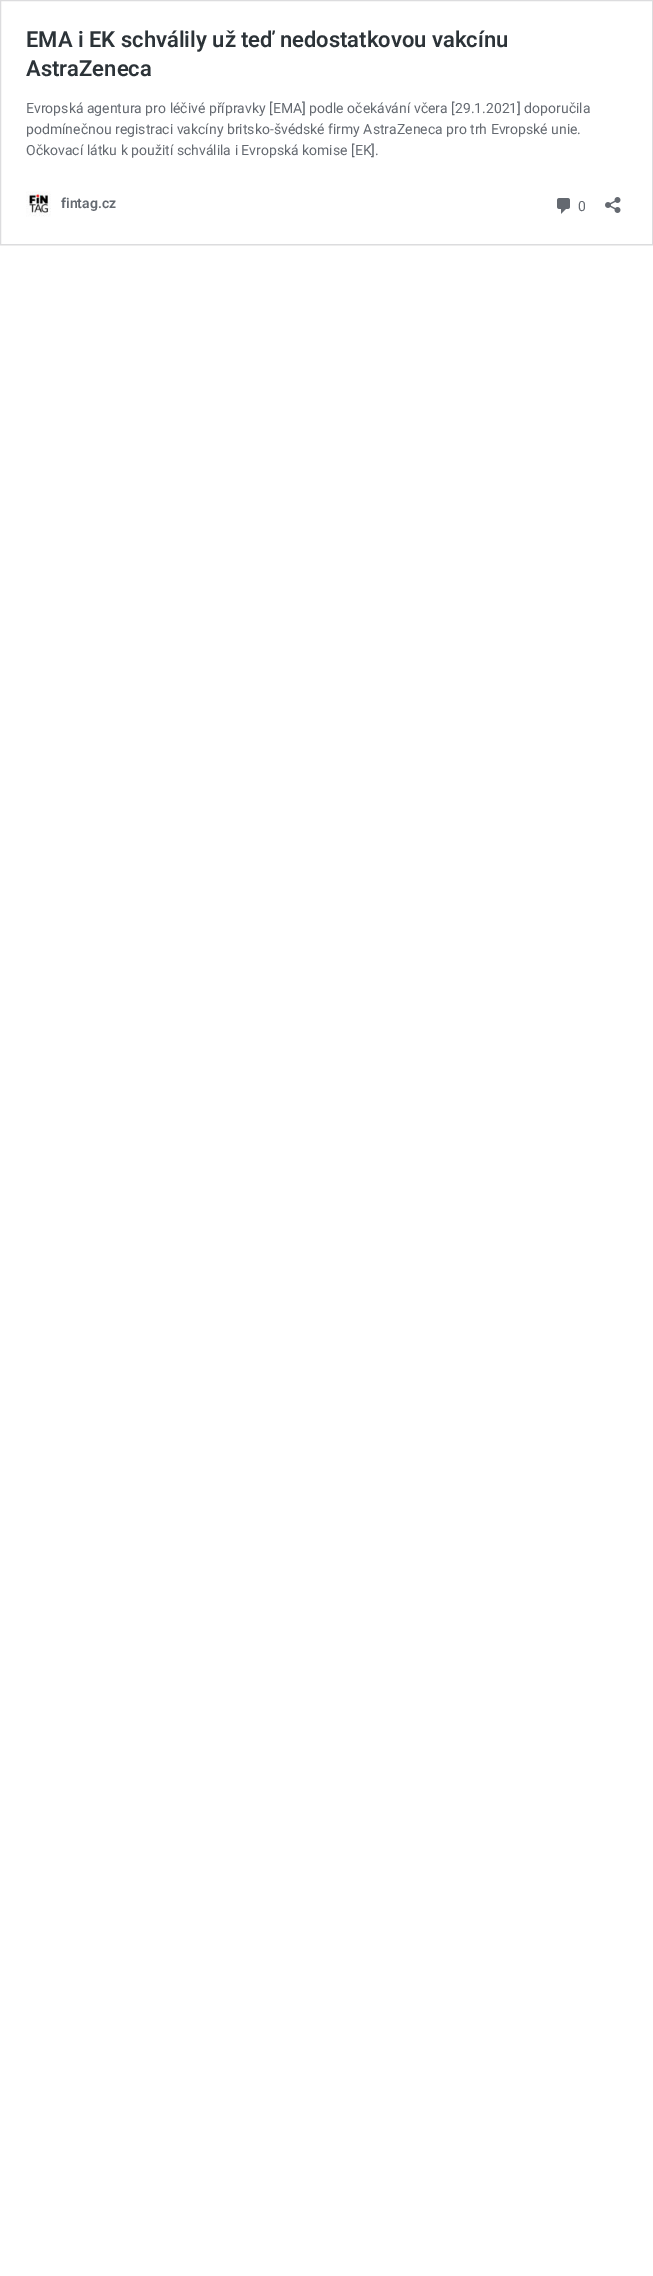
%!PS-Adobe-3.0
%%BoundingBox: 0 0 653 2276
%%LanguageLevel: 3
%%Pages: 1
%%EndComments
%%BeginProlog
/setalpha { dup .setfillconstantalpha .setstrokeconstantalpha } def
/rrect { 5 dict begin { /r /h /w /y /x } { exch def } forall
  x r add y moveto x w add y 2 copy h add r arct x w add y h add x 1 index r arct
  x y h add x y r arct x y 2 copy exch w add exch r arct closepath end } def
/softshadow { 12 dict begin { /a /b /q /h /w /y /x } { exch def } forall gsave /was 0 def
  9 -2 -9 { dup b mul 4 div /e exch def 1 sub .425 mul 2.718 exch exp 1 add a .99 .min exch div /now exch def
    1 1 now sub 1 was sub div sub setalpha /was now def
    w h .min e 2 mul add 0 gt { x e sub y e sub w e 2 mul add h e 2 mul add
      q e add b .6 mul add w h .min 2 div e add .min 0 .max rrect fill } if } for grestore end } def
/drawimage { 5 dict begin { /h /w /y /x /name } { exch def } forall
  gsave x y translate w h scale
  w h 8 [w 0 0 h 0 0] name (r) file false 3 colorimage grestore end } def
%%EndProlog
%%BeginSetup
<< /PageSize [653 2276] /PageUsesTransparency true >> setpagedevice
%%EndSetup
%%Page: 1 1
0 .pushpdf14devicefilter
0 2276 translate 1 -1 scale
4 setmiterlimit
1 setgray
0 0 653 2276 rectfill
gsave
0 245 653 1 rectclip
0 setgray
0 1 653 245 0 0.5 0.05 softshadow
grestore
0.863 0.863 0.871 setrgbcolor
0.5 0.5 652 244 rectstroke
(images/1.raw) 26 191 25 26 drawimage
(images/2.raw) 557 198 13 16 drawimage
(images/3.raw) 605 197 16 16 drawimage
/Roboto-SemiBold [22 0 0 -22 0 0] selectfont
0.173 0.2 0.22 setrgbcolor
26 47 moveto (EMA i EK schválily už teď nedostatkovou vakcínu) show
26 76 moveto (AstraZeneca) show
/Roboto-Regular [14 0 0 -14 0 0] selectfont
0.392 0.412 0.439 setrgbcolor
26 113 moveto (Evropská agentura pro léčivé přípravky [EMA] podle očekávání včera [29.1.2021] doporučila) show
26 134 moveto (podmínečnou registraci vakcíny britsko-švédské firmy AstraZeneca pro trh Evropské unie.) show
26 155 moveto (Očkovací látku k použití schválila i Evropská komise [EK].) show
/Roboto-SemiBold [14 0 0 -14 0 0] selectfont
61 208 moveto (fintag.cz) show
/Roboto-Regular [14 0 0 -14 0 0] selectfont
578 211 moveto (0) show
.poppdf14devicefilter showpage
%%EOF
